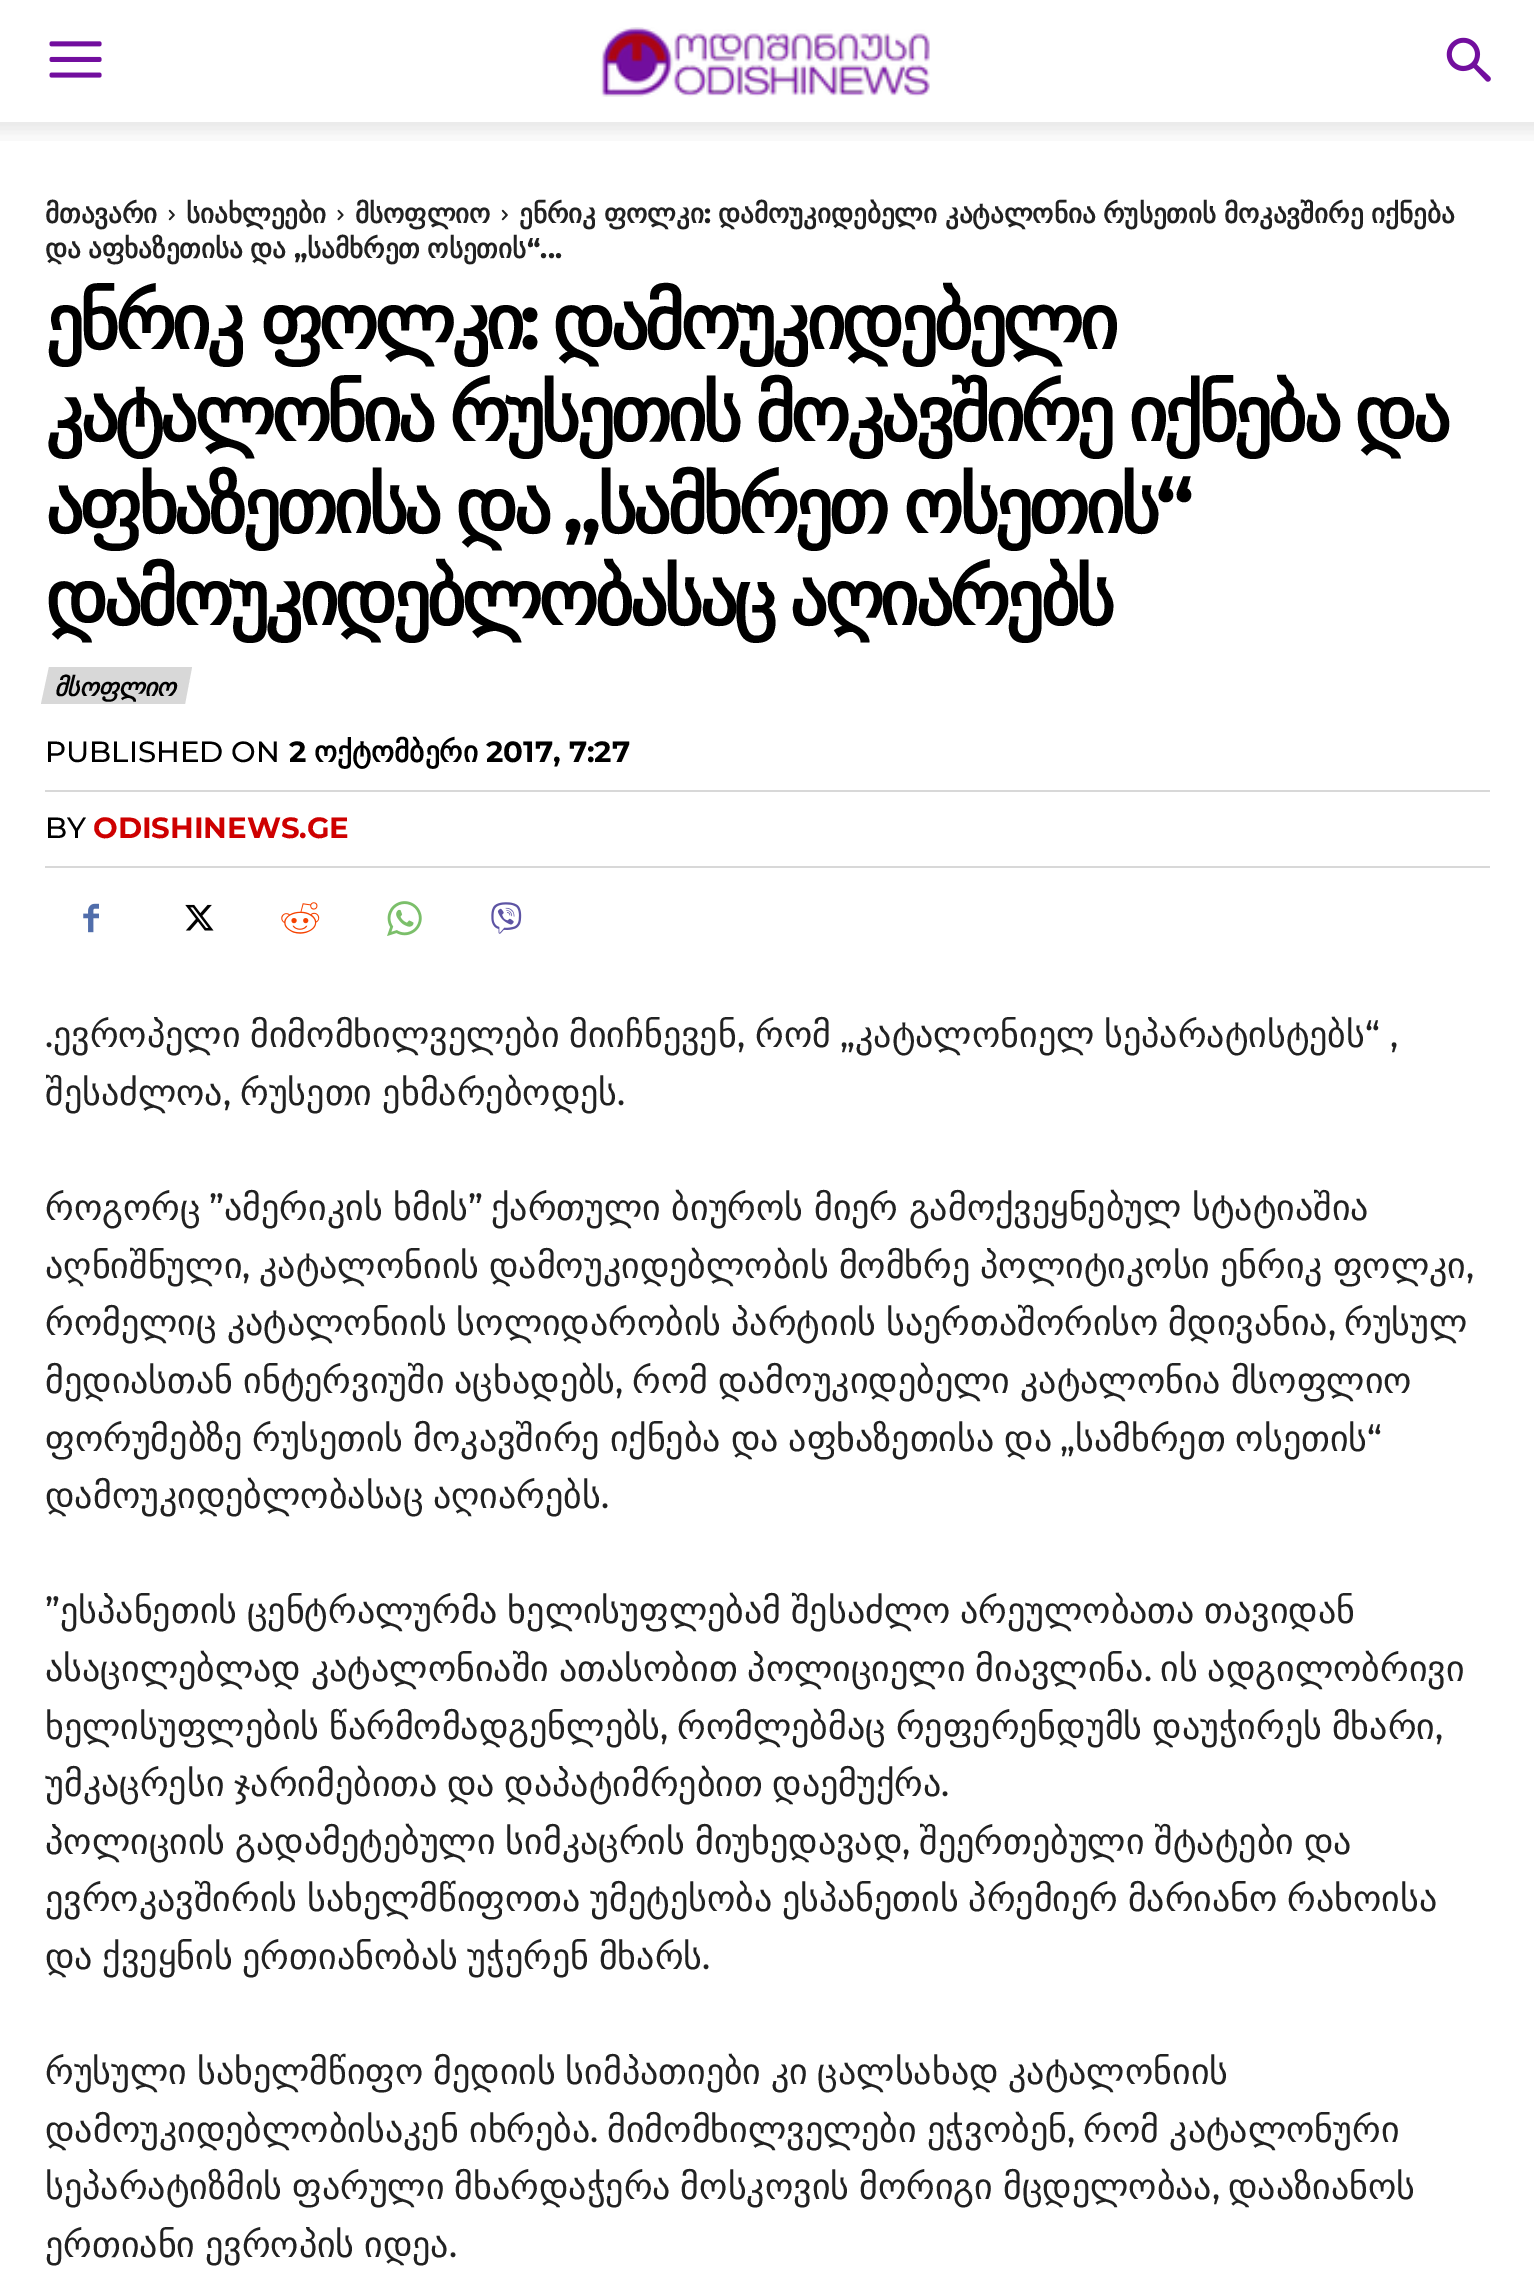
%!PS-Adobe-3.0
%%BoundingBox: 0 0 1534 2283
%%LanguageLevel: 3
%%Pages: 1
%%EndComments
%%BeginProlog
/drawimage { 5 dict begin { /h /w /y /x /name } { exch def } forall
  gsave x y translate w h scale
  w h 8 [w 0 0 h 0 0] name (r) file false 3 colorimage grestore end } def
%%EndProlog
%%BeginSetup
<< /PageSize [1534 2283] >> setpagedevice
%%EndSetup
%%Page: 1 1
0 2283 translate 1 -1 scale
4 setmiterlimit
1 setgray
0 0 1534 2283 rectfill
(images/1.raw) 49 41 53 37 drawimage
(images/2.raw) 600 27 330 70 drawimage
(images/3.raw) 1446 37 45 45 drawimage
(images/4.raw) 0 122 1534 19 drawimage
(images/5.raw) 168 209 7 12 drawimage
(images/6.raw) 337 209 7 12 drawimage
(images/5.raw) 501 209 7 12 drawimage
0.847 setgray
newpath 49 667 moveto 192 667 lineto 185 704 lineto 41 704 lineto closepath fill
45 790 1445 2 rectfill
45 866 1445 2 rectfill
(images/7.raw) 83 903 16 30 drawimage
(images/8.raw) 185 904 29 27 drawimage
(images/9.raw) 281 902 39 32 drawimage
(images/10.raw) 387 901 35 35 drawimage
(images/11.raw) 491 902 31 32 drawimage
/DejaVuSans-Bold [27 0 0 -27 0 0] selectfont
0.133 setgray
45 223 moveto (მთავარი) show
186 223 moveto (სიახლეები) show
355 223 moveto (მსოფლიო) show
519 223 moveto -1 0 32 (ენრიკ ფოლკი) widthshow
/Montserrat-Bold [27 0 0 -27 0 0] selectfont
704 223 moveto (:) show
/DejaVuSans-Bold [27 0 0 -27 0 0] selectfont
718 223 moveto -1 0 32 (დამოუკიდებელი კატალონია რუსეთის მოკავშირე იქნება) widthshow
45 258 moveto -1 0 32 (და აფხაზეთისა და) widthshow
/Montserrat-Bold [27 0 0 -27 0 0] selectfont
294 258 moveto („) show
/DejaVuSans-Bold [27 0 0 -27 0 0] selectfont
307 258 moveto -1 0 32 (სამხრეთ ოსეთის) widthshow
/Montserrat-Bold [27 0 0 -27 0 0] selectfont
527 258 moveto (“...) show
/DejaVuSans-Bold [76.5 0 0 -76.5 0 0] selectfont
0 setgray
45 349 moveto -1 0 32 -4.5 0 (ენრიკ ფოლკი) awidthshow
/Montserrat-Bold [76.5 0 0 -76.5 0 0] selectfont
520 349 moveto -4.5 0 (:) ashow
/DejaVuSans-Bold [76.5 0 0 -76.5 0 0] selectfont
552 349 moveto -4.5 0 (დამოუკიდებელი) ashow
45 441 moveto -2.5 0 32 -4.5 0 (კატალონია რუსეთის მოკავშირე იქნება და) awidthshow
45 533 moveto -2 0 32 -4.5 0 (აფხაზეთისა და) awidthshow
597 533 moveto -2 0 32 -4.5 0 (სამხრეთ ოსეთის) awidthshow
/Montserrat-Bold [76.5 0 0 -76.5 0 0] selectfont
1156 533 moveto -4.5 0 (“) ashow
563 533 moveto -4.5 0 („) ashow
/DejaVuSans-Bold [76.5 0 0 -76.5 0 0] selectfont
45 625 moveto -2.5 0 32 -4.5 0 (დამოუკიდებლობასაც აღიარებს) awidthshow
/DejaVuSans-BoldItalic [24.75 0 0 -24.75 0 0] selectfont
54 696 moveto -0.5 0 (მსოფლიო) ashow
/Montserrat-Medium [29.25 0 0 -29.25 0 0] selectfont
45 762 moveto (PUBLISHED ON) show
/Montserrat-Bold [29.25 0 0 -29.25 0 0] selectfont
289 762 moveto (2) show
/DejaVuSans-Bold [29.25 0 0 -29.25 0 0] selectfont
314 762 moveto (ოქტომბერი) show
/Montserrat-Bold [29.25 0 0 -29.25 0 0] selectfont
486 762 moveto (2017, 7:27) show
/Montserrat-Medium [29.25 0 0 -29.25 0 0] selectfont
45 838 moveto (BY) show
/Montserrat-Bold [29.25 0 0 -29.25 0 0] selectfont
0.808 0 0 setrgbcolor
93 838 moveto (ODISHINEWS.GE) show
/Montserrat-Medium [36 0 0 -36 0 0] selectfont
0.133 setgray
45 1047 moveto (.) show
/DejaVuSans-Regular [36 0 0 -36 0 0] selectfont
53 1047 moveto (ევროპელი) show
250 1047 moveto (მიმომხილველები) show
569 1047 moveto (მიიჩნევენ) show
/Montserrat-Medium [36 0 0 -36 0 0] selectfont
737 1047 moveto (,) show
/DejaVuSans-Regular [36 0 0 -36 0 0] selectfont
755 1047 moveto (რომ) show
/Montserrat-Medium [36 0 0 -36 0 0] selectfont
840 1047 moveto („) show
/DejaVuSans-Regular [36 0 0 -36 0 0] selectfont
855 1047 moveto (კატალონიელ) show
1104 1047 moveto (სეპარატისტებს) show
/Montserrat-Medium [36 0 0 -36 0 0] selectfont
1365 1047 moveto (“ ,) show
/DejaVuSans-Regular [36 0 0 -36 0 0] selectfont
45 1105 moveto (შესაძლოა) show
/Montserrat-Medium [36 0 0 -36 0 0] selectfont
223 1105 moveto (,) show
/DejaVuSans-Regular [36 0 0 -36 0 0] selectfont
240 1105 moveto -1 0 32 (რუსეთი ეხმარებოდეს) widthshow
/Montserrat-Medium [36 0 0 -36 0 0] selectfont
617 1105 moveto (.) show
/DejaVuSans-Regular [36 0 0 -36 0 0] selectfont
45 1220 moveto (როგორც) show
/Montserrat-Medium [36 0 0 -36 0 0] selectfont
209 1220 moveto (”) show
/DejaVuSans-Regular [36 0 0 -36 0 0] selectfont
224 1220 moveto -1 0 32 (ამერიკის ხმის) widthshow
/Montserrat-Medium [36 0 0 -36 0 0] selectfont
468 1220 moveto (”) show
/DejaVuSans-Regular [36 0 0 -36 0 0] selectfont
491 1220 moveto -1 0 32 (ქართული ბიუროს მიერ გამოქვეყნებულ სტატიაშია) widthshow
45 1278 moveto (აღნიშნული) show
/Montserrat-Medium [36 0 0 -36 0 0] selectfont
242 1278 moveto (,) show
/DejaVuSans-Regular [36 0 0 -36 0 0] selectfont
259 1278 moveto -1.5 0 32 (კატალონიის დამოუკიდებლობის მომხრე პოლიტიკოსი ენრიკ ფოლკი) widthshow
/Montserrat-Medium [36 0 0 -36 0 0] selectfont
1466 1278 moveto (,) show
/DejaVuSans-Regular [36 0 0 -36 0 0] selectfont
45 1335 moveto -1.5 0 32 (რომელიც კატალონიის სოლიდარობის პარტიის საერთაშორისო მდივანია) widthshow
/Montserrat-Medium [36 0 0 -36 0 0] selectfont
1328 1335 moveto (,) show
/DejaVuSans-Regular [36 0 0 -36 0 0] selectfont
1344 1335 moveto (რუსულ) show
45 1393 moveto -1.5 0 32 (მედიასთან ინტერვიუში აცხადებს) widthshow
/Montserrat-Medium [36 0 0 -36 0 0] selectfont
615 1393 moveto (,) show
/DejaVuSans-Regular [36 0 0 -36 0 0] selectfont
632 1393 moveto -1.5 0 32 (რომ დამოუკიდებელი კატალონია მსოფლიო) widthshow
45 1451 moveto -1.5 0 32 (ფორუმებზე რუსეთის მოკავშირე იქნება და აფხაზეთისა და) widthshow
1075 1451 moveto -1.5 0 32 (სამხრეთ ოსეთის) widthshow
/Montserrat-Medium [36 0 0 -36 0 0] selectfont
1367 1451 moveto (“) show
1060 1451 moveto („) show
/DejaVuSans-Regular [36 0 0 -36 0 0] selectfont
45 1508 moveto -1.75 0 32 (დამოუკიდებლობასაც აღიარებს) widthshow
/Montserrat-Medium [36 0 0 -36 0 0] selectfont
601 1508 moveto (.) show
45 1623 moveto (”) show
/DejaVuSans-Regular [36 0 0 -36 0 0] selectfont
60 1623 moveto -1.75 0 32 (ესპანეთის ცენტრალურმა ხელისუფლებამ შესაძლო არეულობათა თავიდან) widthshow
45 1681 moveto -1.5 0 32 (ასაცილებლად კატალონიაში ათასობით პოლიციელი მიავლინა) widthshow
/Montserrat-Medium [36 0 0 -36 0 0] selectfont
1144 1681 moveto (.) show
/DejaVuSans-Regular [36 0 0 -36 0 0] selectfont
1160 1681 moveto -1.5 0 32 (ის ადგილობრივი) widthshow
45 1739 moveto -1.5 0 32 (ხელისუფლების წარმომადგენლებს) widthshow
/Montserrat-Medium [36 0 0 -36 0 0] selectfont
660 1739 moveto (,) show
/DejaVuSans-Regular [36 0 0 -36 0 0] selectfont
677 1739 moveto -1.5 0 32 (რომლებმაც რეფერენდუმს დაუჭირეს მხარი) widthshow
/Montserrat-Medium [36 0 0 -36 0 0] selectfont
1435 1739 moveto (,) show
/DejaVuSans-Regular [36 0 0 -36 0 0] selectfont
45 1796 moveto -1.75 0 32 (უმკაცრესი ჯარიმებითა და დაპატიმრებით დაემუქრა) widthshow
/Montserrat-Medium [36 0 0 -36 0 0] selectfont
941 1796 moveto (.) show
/DejaVuSans-Regular [36 0 0 -36 0 0] selectfont
45 1854 moveto -1.5 0 32 (პოლიციის გადამეტებული სიმკაცრის მიუხედავად) widthshow
/Montserrat-Medium [36 0 0 -36 0 0] selectfont
902 1854 moveto (,) show
/DejaVuSans-Regular [36 0 0 -36 0 0] selectfont
919 1854 moveto -1.5 0 32 (შეერთებული შტატები და) widthshow
45 1911 moveto -1.75 0 32 (ევროკავშირის სახელმწიფოთა უმეტესობა ესპანეთის პრემიერ მარიანო რახოისა) widthshow
45 1969 moveto -1.75 0 32 (და ქვეყნის ერთიანობას უჭერენ მხარს) widthshow
/Montserrat-Medium [36 0 0 -36 0 0] selectfont
702 1969 moveto (.) show
/DejaVuSans-Regular [36 0 0 -36 0 0] selectfont
45 2084 moveto -1.75 0 32 (რუსული სახელმწიფო მედიის სიმპათიები კი ცალსახად კატალონიის) widthshow
45 2142 moveto -1 0 32 (დამოუკიდებლობისაკენ იხრება) widthshow
/Montserrat-Medium [36 0 0 -36 0 0] selectfont
590 2142 moveto (.) show
/DejaVuSans-Regular [36 0 0 -36 0 0] selectfont
607 2142 moveto -1 0 32 (მიმომხილველები ეჭვობენ) widthshow
/Montserrat-Medium [36 0 0 -36 0 0] selectfont
1067 2142 moveto (,) show
/DejaVuSans-Regular [36 0 0 -36 0 0] selectfont
1083 2142 moveto -1 0 32 (რომ კატალონური) widthshow
45 2199 moveto -1.5 0 32 (სეპარატიზმის ფარული მხარდაჭერა მოსკოვის მორიგი მცდელობაა) widthshow
/Montserrat-Medium [36 0 0 -36 0 0] selectfont
1212 2199 moveto (,) show
/DejaVuSans-Regular [36 0 0 -36 0 0] selectfont
1228 2199 moveto (დააზიანოს) show
45 2257 moveto -1.75 0 32 (ერთიანი ევროპის იდეა) widthshow
/Montserrat-Medium [36 0 0 -36 0 0] selectfont
449 2257 moveto (.) show
showpage
%%EOF
